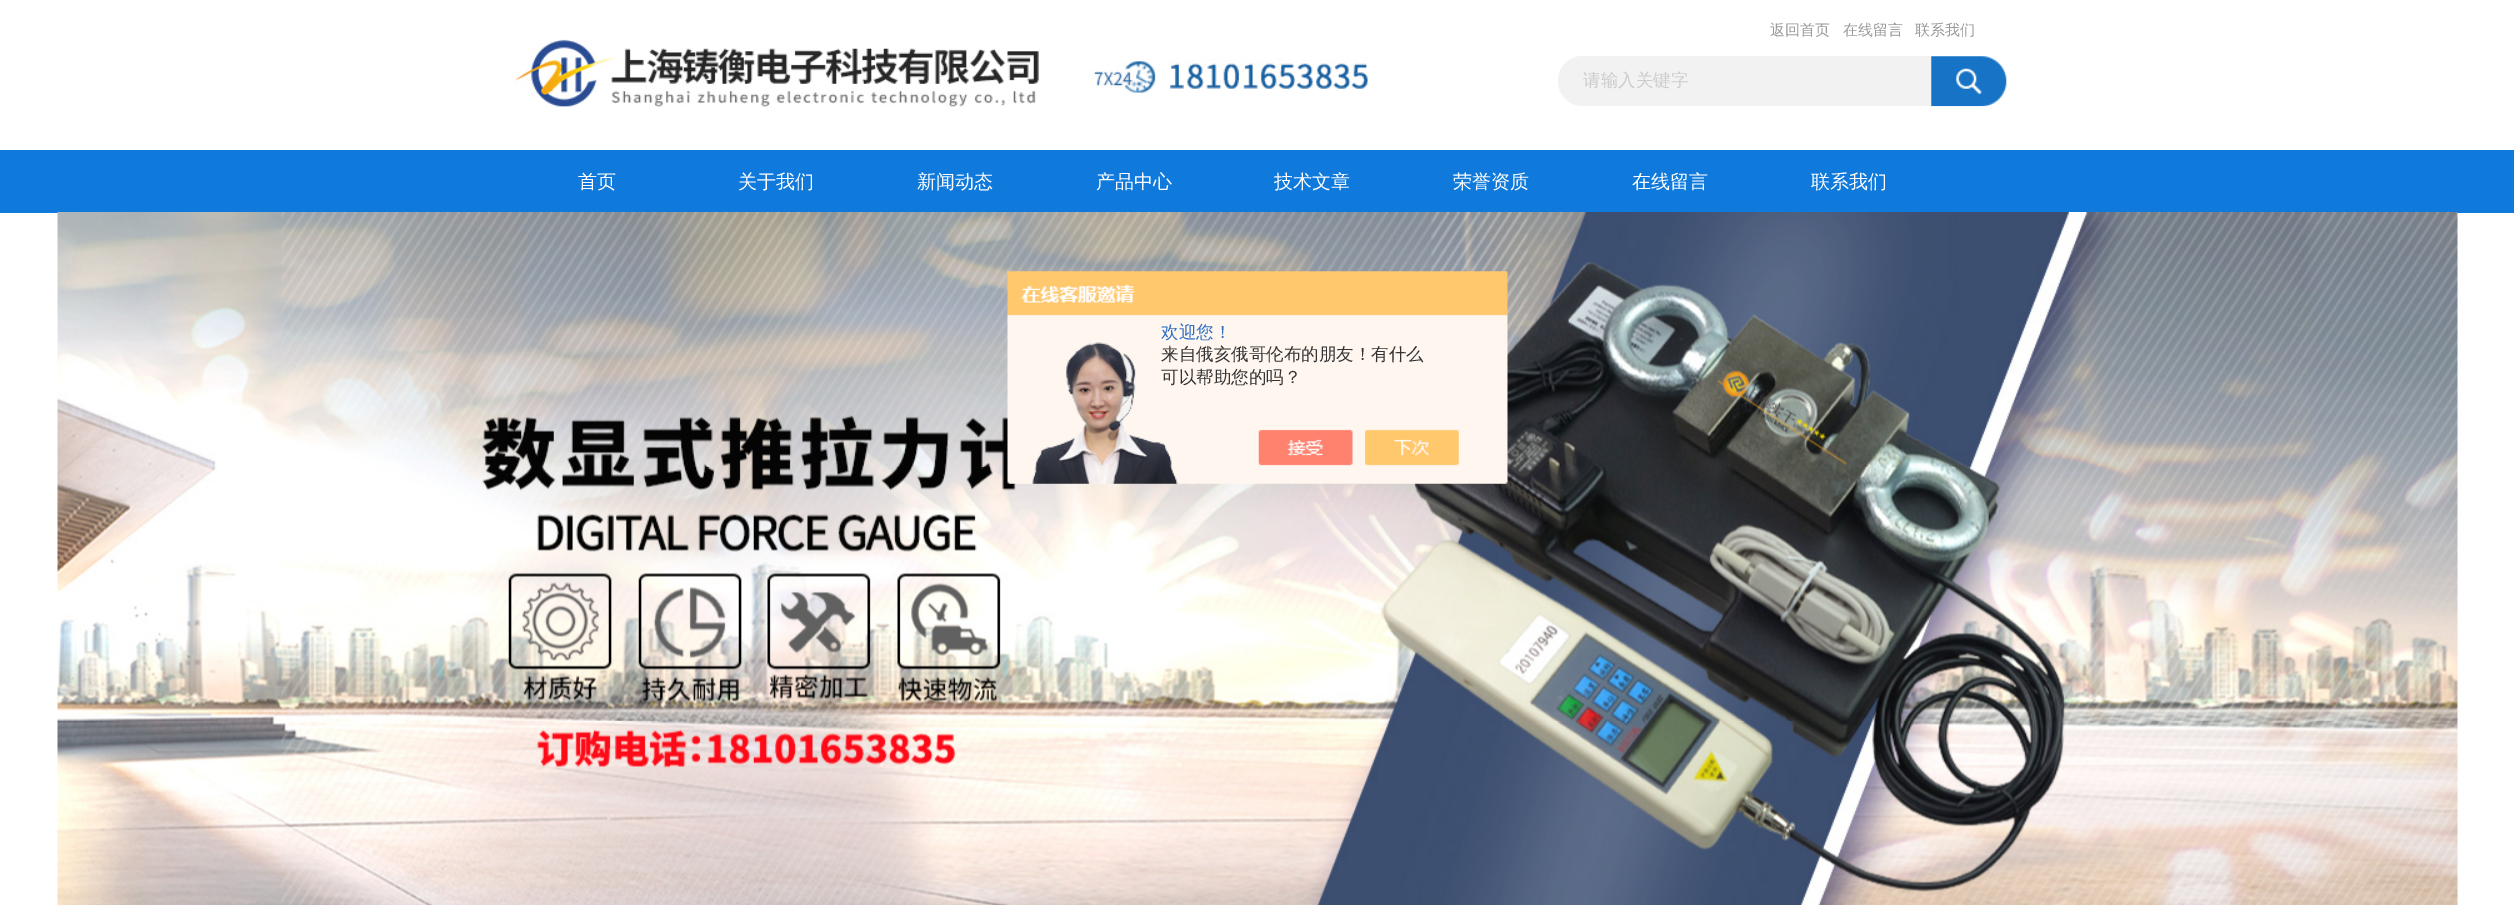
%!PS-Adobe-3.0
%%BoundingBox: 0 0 2514 905
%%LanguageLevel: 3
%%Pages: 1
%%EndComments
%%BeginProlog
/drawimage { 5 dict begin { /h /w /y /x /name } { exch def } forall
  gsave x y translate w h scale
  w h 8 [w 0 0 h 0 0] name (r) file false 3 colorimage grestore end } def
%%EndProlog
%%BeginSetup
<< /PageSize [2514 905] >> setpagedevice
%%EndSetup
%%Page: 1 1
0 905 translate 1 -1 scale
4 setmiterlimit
1 setgray
0 0 2514 905 rectfill
(images/1.raw) 514 39 855 68 drawimage
0.949 setgray
newpath 1583 56 moveto 1931 56 lineto 1931 106 lineto 1583 106 lineto 1569 106 1558 95 1558 81 curveto 1558 67 1569 56 1583 56 curveto closepath fill
(images/2.raw) 1931 56 76 51 drawimage
0.059 0.478 0.859 setrgbcolor
0 150 2514 63 rectfill
(images/3.raw) 57 212 2401 693 drawimage
(images/4.raw) 1007 271 501 213 drawimage
/WenQuanYiZenHei-Medium [15 0 0 -15 0 0] selectfont
0.6 setgray
1770 35 moveto (返回首页) show
1843 35 moveto (在线留言) show
1915 35 moveto (联系我们) show
/WenQuanYiZenHei-Medium [17.5 0 0 -17.5 0 0] selectfont
0.8 setgray
1583 86 moveto (请输入关键字) show
/WenQuanYiZenHei-Medium [19 0 0 -19 0 0] selectfont
1 setgray
578 188 moveto (首页) show
738 188 moveto (关于我们) show
917 188 moveto (新闻动态) show
1096 188 moveto (产品中心) show
1274 188 moveto (技术文章) show
1453 188 moveto (荣誉资质) show
1632 188 moveto (在线留言) show
1811 188 moveto (联系我们) show
/WenQuanYiZenHei-Medium [17.5 0 0 -17.5 0 0] selectfont
0.18 0.431 0.776 setrgbcolor
1161 338 moveto (欢迎您！) show
0.2 setgray
1161 360 moveto (来自俄亥俄哥伦布的朋友！有什么) show
1161 383 moveto (可以帮助您的吗？) show
showpage
%%EOF
